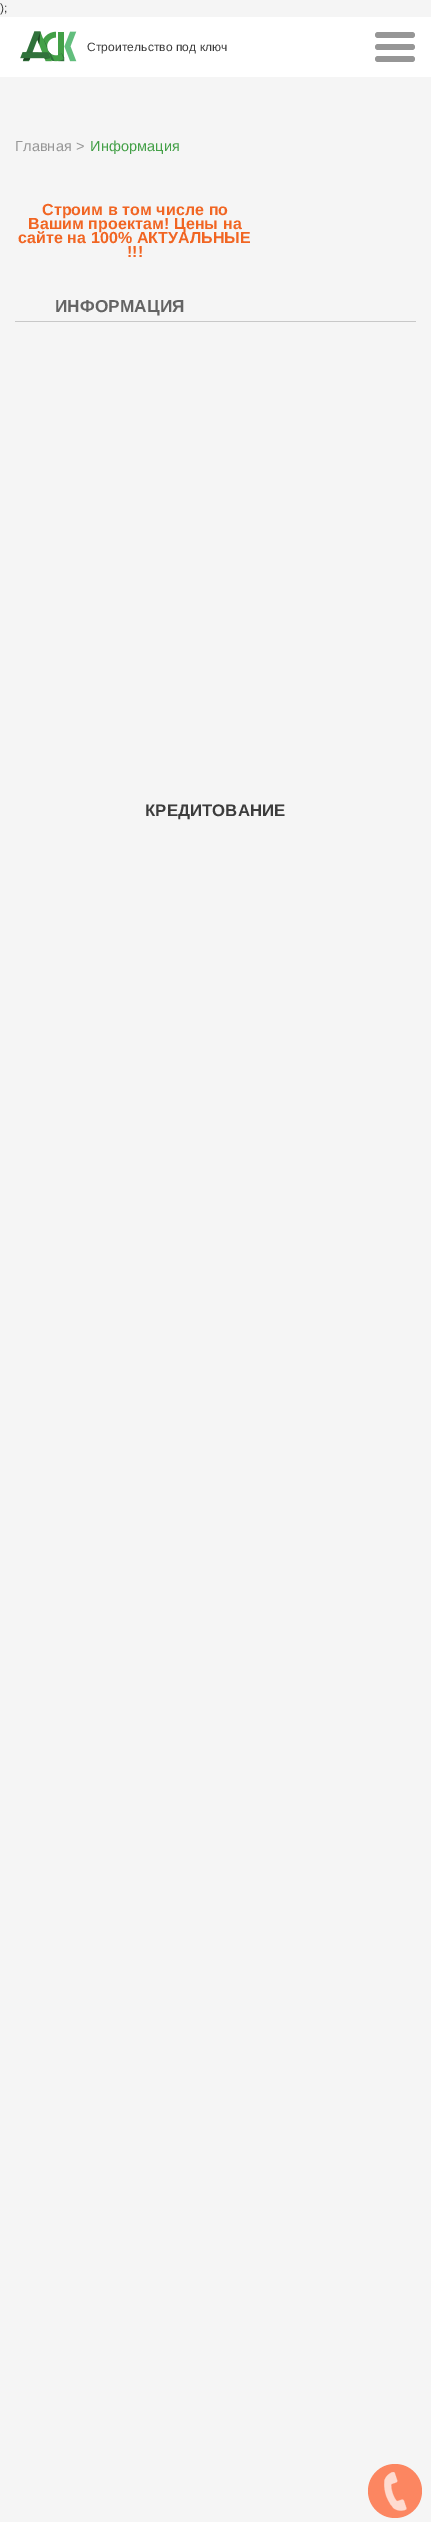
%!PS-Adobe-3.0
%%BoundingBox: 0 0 431 2522
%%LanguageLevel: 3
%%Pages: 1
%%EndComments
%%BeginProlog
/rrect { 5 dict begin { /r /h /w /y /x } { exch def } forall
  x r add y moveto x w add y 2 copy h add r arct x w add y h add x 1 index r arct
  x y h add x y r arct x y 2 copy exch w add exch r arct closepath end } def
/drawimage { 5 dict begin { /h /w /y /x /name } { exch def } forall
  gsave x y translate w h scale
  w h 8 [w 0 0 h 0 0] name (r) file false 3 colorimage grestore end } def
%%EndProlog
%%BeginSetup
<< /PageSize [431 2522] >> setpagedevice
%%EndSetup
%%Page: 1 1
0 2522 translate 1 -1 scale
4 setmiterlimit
0.961 setgray
0 0 431 2522 rectfill
1 setgray
0 17 431 60 rectfill
(images/1.raw) 20 31 57 31 drawimage
0.588 setgray
375 32 40 6 3 rrect fill
375 44 40 6 3 rrect fill
375 56 40 6 3 rrect fill
0.784 setgray
15 321 401 1 rectfill
0.988 0.525 0.38 setrgbcolor
newpath 395 2491 27 0 360 arc closepath fill
(images/2.raw) 384 2472 23 39 drawimage
/Arimo-Regular [12 0 0 -12 0 0] selectfont
0.235 setgray
0 12 moveto 0.1 0 (\);) ashow
87 51 moveto 0.1 0 (Строительство под ключ) ashow
/Arimo-Regular [14.5 0 0 -14.5 0 0] selectfont
0.588 setgray
15 151 moveto 0.1 0 (Главная) ashow
76 151 moveto 0.1 0 (>) ashow
0.263 0.627 0.278 setrgbcolor
90 151 moveto 0.1 0 (Информация) ashow
/Arimo-Bold [16 0 0 -16 0 0] selectfont
0.945 0.396 0.133 setrgbcolor
42 215 moveto 0.1 0 (Строим в том числе по) ashow
28 229 moveto 0.1 0 (Вашим проектам! Цены на) ashow
18 243 moveto 0.1 0 (сайте на 100% АКТУАЛЬНЫЕ) ashow
127 257 moveto 0.1 0 (!!!) ashow
/Arimo-Bold [17.25 0 0 -17.25 0 0] selectfont
0.392 setgray
55 312 moveto 0.1 0 (ИНФОРМАЦИЯ) ashow
/Arimo-Bold [16.75 0 0 -16.75 0 0] selectfont
0.235 setgray
145 816 moveto 0.1 0 (КРЕДИТОВАНИЕ) ashow
showpage
%%EOF
